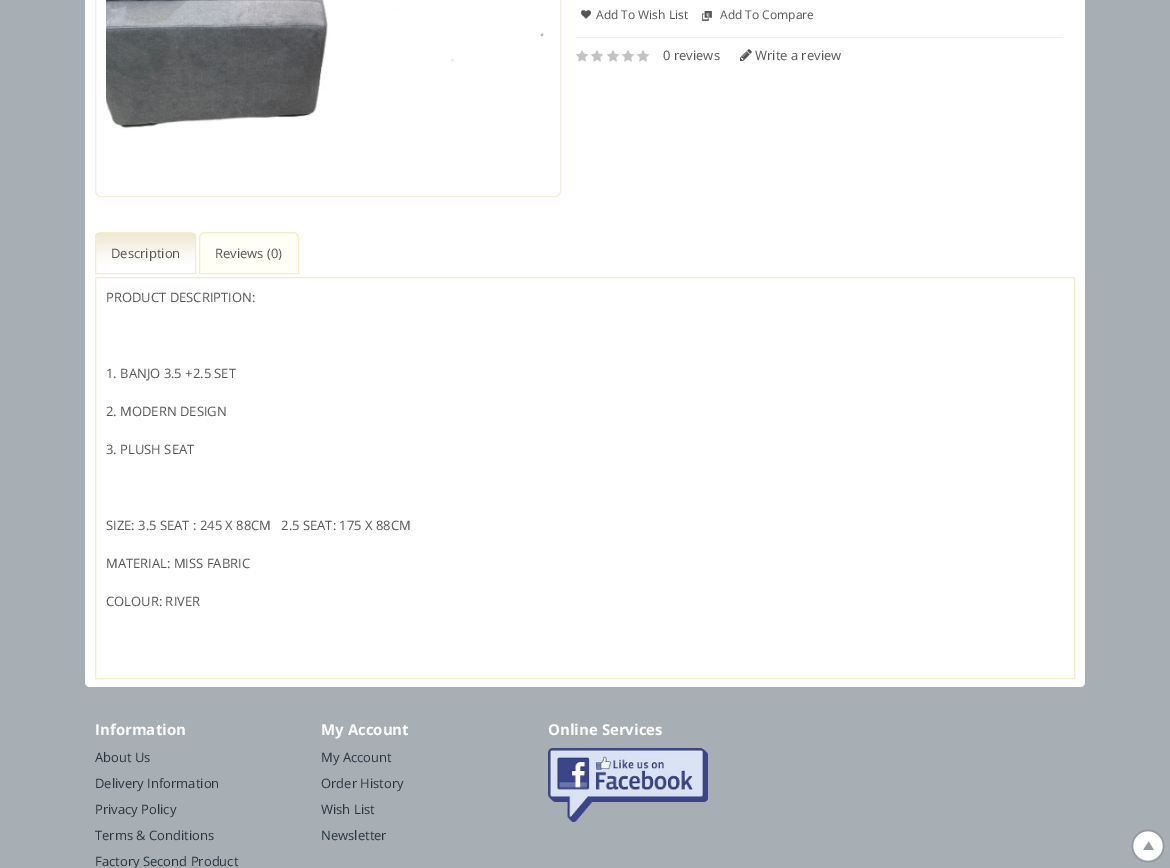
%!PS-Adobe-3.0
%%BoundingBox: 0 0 1170 868
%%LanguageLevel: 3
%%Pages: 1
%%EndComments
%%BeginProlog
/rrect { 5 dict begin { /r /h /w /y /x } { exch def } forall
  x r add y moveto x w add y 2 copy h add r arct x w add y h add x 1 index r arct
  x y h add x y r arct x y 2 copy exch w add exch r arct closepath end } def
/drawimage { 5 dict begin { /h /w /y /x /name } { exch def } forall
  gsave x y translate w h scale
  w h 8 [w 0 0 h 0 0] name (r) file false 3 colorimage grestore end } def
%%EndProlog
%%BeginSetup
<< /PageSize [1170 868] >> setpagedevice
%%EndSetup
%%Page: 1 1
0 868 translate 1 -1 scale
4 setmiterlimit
0.655 0.686 0.71 setrgbcolor
0 0 1170 868 rectfill
1 setgray
newpath 85 -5 moveto 1085 -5 lineto 1085 682 lineto 1085 685 1083 687 1080 687 curveto 90 687 lineto 87 687 85 685 85 682 curveto closepath fill
0.957 0.933 0.875 setrgbcolor
95.5 -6.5 465 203 5.5 rrect stroke
(images/1.raw) 106 0 438 129 drawimage
576 37 487 1 rectfill
(images/2.raw) 581 10 10 9 drawimage
(images/3.raw) 702 11 10 10 drawimage
(images/4.raw) 576 50 12 12 drawimage
(images/4.raw) 591 50 12 12 drawimage
(images/4.raw) 607 50 12 12 drawimage
(images/4.raw) 622 50 12 12 drawimage
(images/4.raw) 637 50 12 12 drawimage
(images/5.raw) 740 49 12 12 drawimage
gsave
newpath 101 232 moveto 190 232 lineto 193.5 232 196 234.5 196 238 curveto 196 274 lineto 95 274 lineto 95 238 lineto 95 234.5 97.5 232 101 232 curveto closepath clip newpath
gsave newpath 95 233 moveto 196 233 lineto 196 273 lineto 95 273 lineto closepath clip newpath
<< /ShadingType 2 /ColorSpace /DeviceRGB /Coords [146 233 146 273] /Extend [true true] /Function << /FunctionType 3 /Domain [0 1] /Functions [<< /FunctionType 2 /Domain [0 1] /C0 [0.941 0.91 0.831] /C1 [1 1 1] /N 1 >> << /FunctionType 2 /Domain [0 1] /C0 [1 1 1] /C1 [1 1 1] /N 1 >>] /Bounds [0.77] /Encode [0 1 0 1] >> >> shfill grestore
grestore
0.965 0.925 0.788 setrgbcolor
newpath 101 232.5 moveto 190 232.5 lineto 193 232.5 195.5 235 195.5 238 curveto 195.5 273.5 lineto 95.5 273.5 lineto 95.5 238 lineto 95.5 235 98 232.5 101 232.5 curveto closepath stroke
1 1 0.965 setrgbcolor
newpath 205 232.5 moveto 293 232.5 lineto 296 232.5 298.5 235 298.5 238 curveto 298.5 273.5 lineto 199.5 273.5 lineto 199.5 238 lineto 199.5 235 202 232.5 205 232.5 curveto closepath gsave fill grestore
0.965 0.925 0.788 setrgbcolor
stroke
95.5 277.5 979 401 rectstroke
(images/6.raw) 548 748 160 74 drawimage
(images/7.raw) 1131 829 34 34 drawimage
/OpenSans-Regular [12 0 0 -12 0 0] selectfont
0.333 setgray
596 19 moveto (Add To Wish List) show
720 19 moveto (Add To Compare) show
/OpenSans-Regular [13 0 0 -13 0 0] selectfont
663 60 moveto (0 reviews) show
755 60 moveto (Write a review) show
111 258 moveto (Description) show
215 258 moveto (Reviews \(0\)) show
106 302 moveto (PRODUCT DESCRIPTION:) show
106 378 moveto (1. BANJO 3.5 +2.5 SET) show
106 416 moveto (2. MODERN DESIGN) show
106 454 moveto (3. PLUSH SEAT) show
106 530 moveto (SIZE: 3.5 SEAT : 245 X 88CM   2.5 SEAT: 175 X 88CM) show
106 568 moveto (MATERIAL: MISS FABRIC) show
106 606 moveto (COLOUR: RIVER) show
/OpenSans-Bold [15 0 0 -15 0 0] selectfont
1 setgray
95 735 moveto (Information) show
/OpenSans-Regular [13 0 0 -13 0 0] selectfont
0.157 0.208 0.255 setrgbcolor
95 762 moveto (About Us) show
95 788 moveto (Delivery Information) show
95 814 moveto (Privacy Policy) show
95 840 moveto (Terms & Conditions) show
95 866 moveto (Factory Second Product) show
/OpenSans-Bold [15 0 0 -15 0 0] selectfont
1 setgray
321 735 moveto (My Account) show
/OpenSans-Regular [13 0 0 -13 0 0] selectfont
0.157 0.208 0.255 setrgbcolor
321 762 moveto (My Account) show
321 788 moveto (Order History) show
321 814 moveto (Wish List) show
321 840 moveto (Newsletter) show
/OpenSans-Bold [15 0 0 -15 0 0] selectfont
1 setgray
548 735 moveto (Online Services) show
showpage
%%EOF
